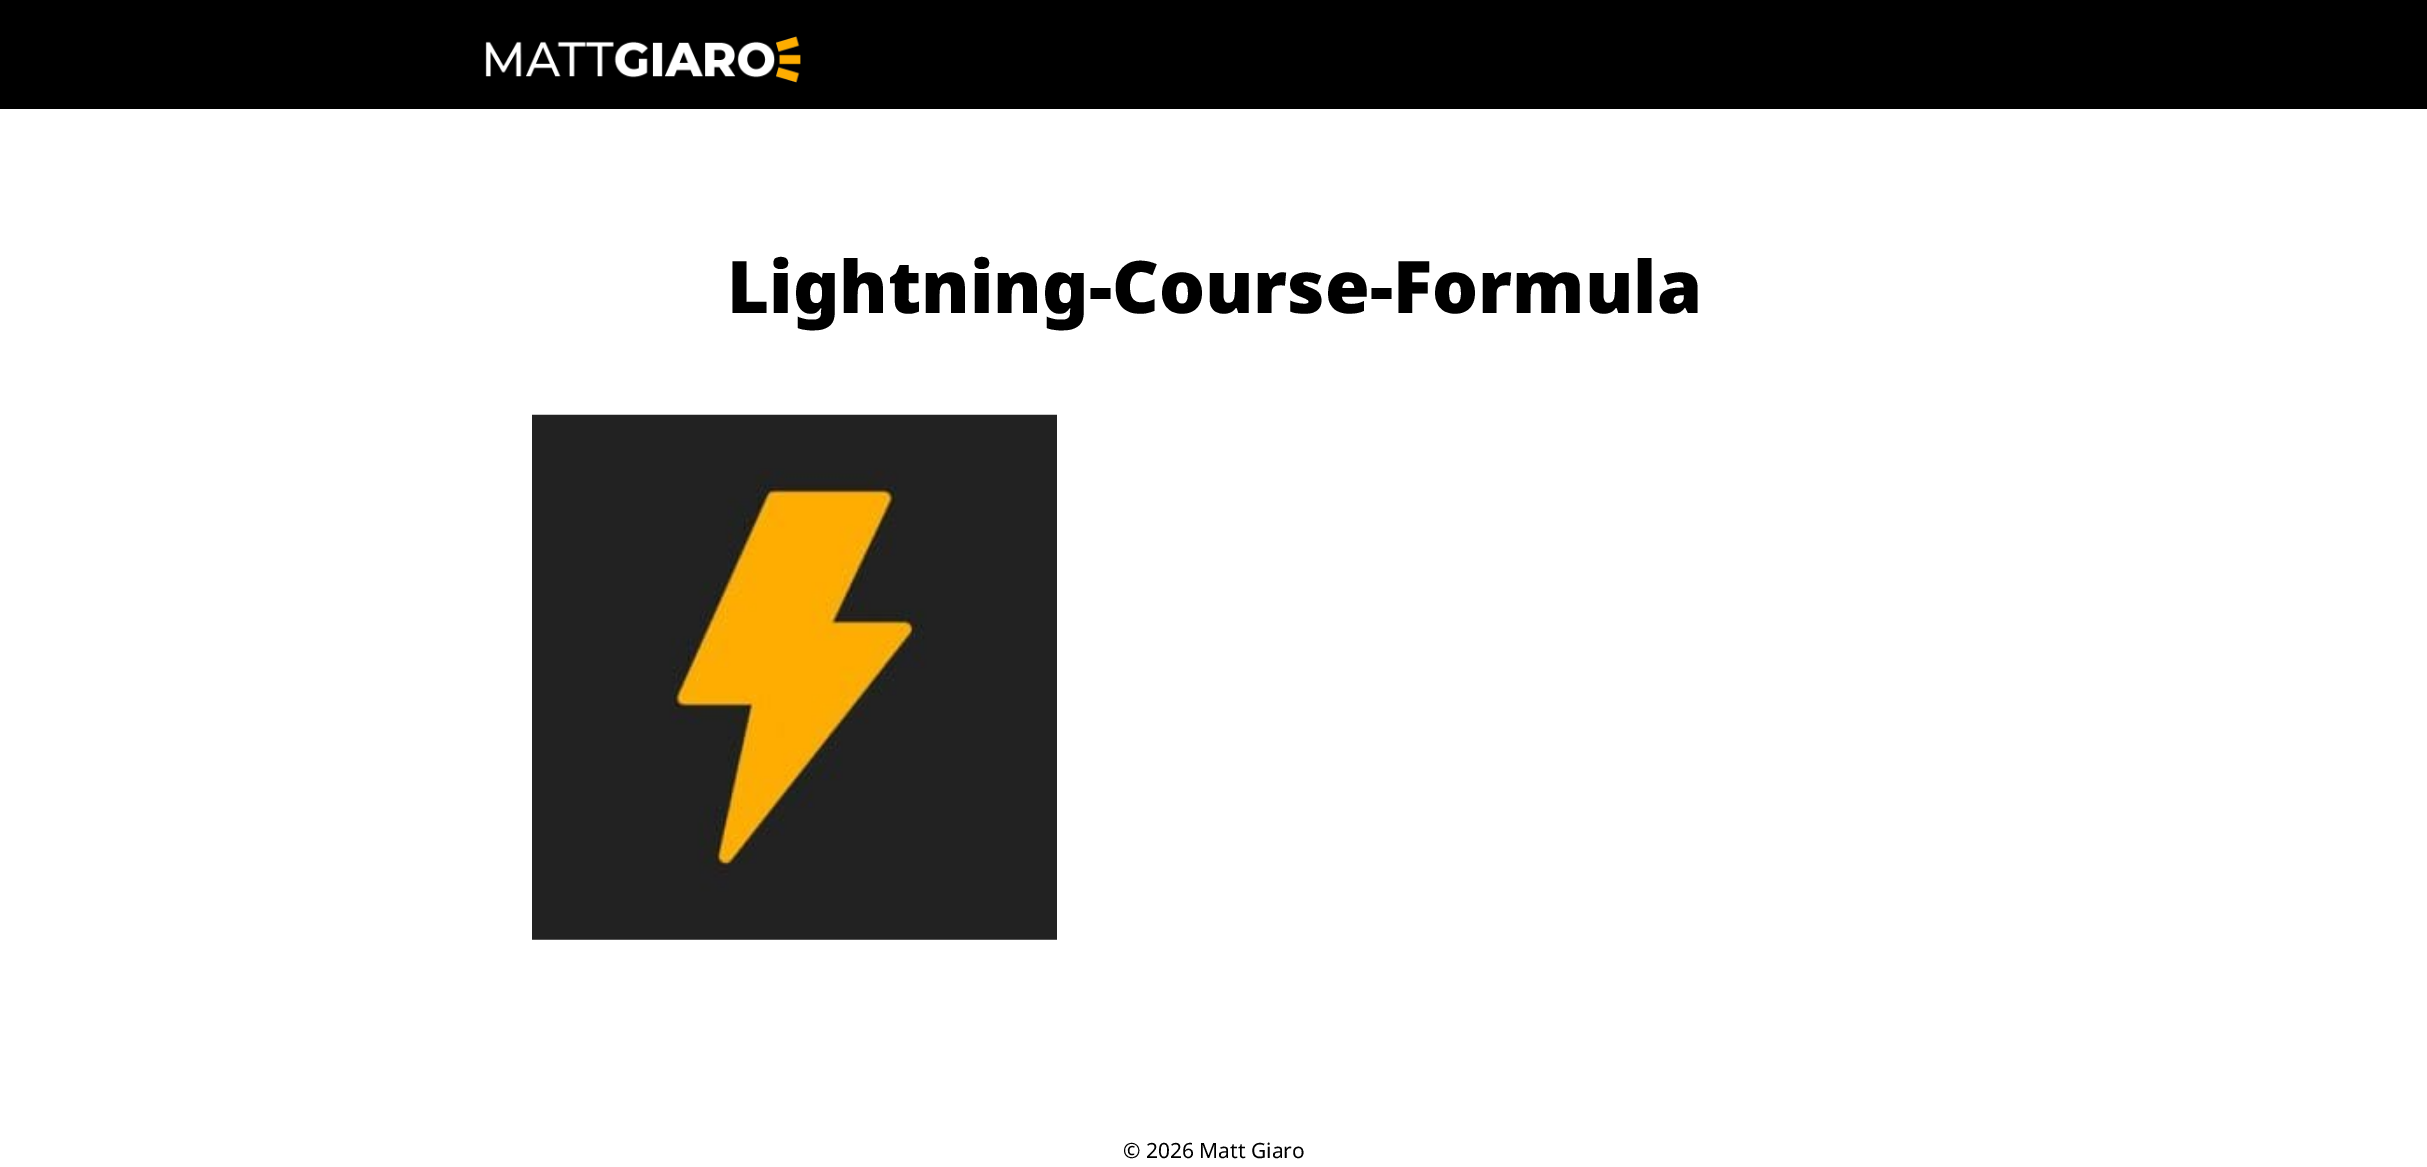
%!PS-Adobe-3.0
%%BoundingBox: 0 0 2427 1167
%%LanguageLevel: 3
%%Pages: 1
%%EndComments
%%BeginProlog
/drawimage { 5 dict begin { /h /w /y /x /name } { exch def } forall
  gsave x y translate w h scale
  w h 8 [w 0 0 h 0 0] name (r) file false 3 colorimage grestore end } def
%%EndProlog
%%BeginSetup
<< /PageSize [2427 1167] >> setpagedevice
%%EndSetup
%%Page: 1 1
0 1167 translate 1 -1 scale
4 setmiterlimit
1 setgray
0 0 2427 1167 rectfill
0 setgray
0 0 2427 109 rectfill
(images/1.raw) 485 36 316 47 drawimage
(images/2.raw) 532 414 525 526 drawimage
/NotoSans-Black [72.5 0 0 -72.5 0 0] selectfont
727 313 moveto (Lightning-Course-Formula) show
/NotoSans-Regular [21 0 0 -21 0 0] selectfont
1123 1158 moveto (© 2026 Matt Giaro) show
showpage
%%EOF
